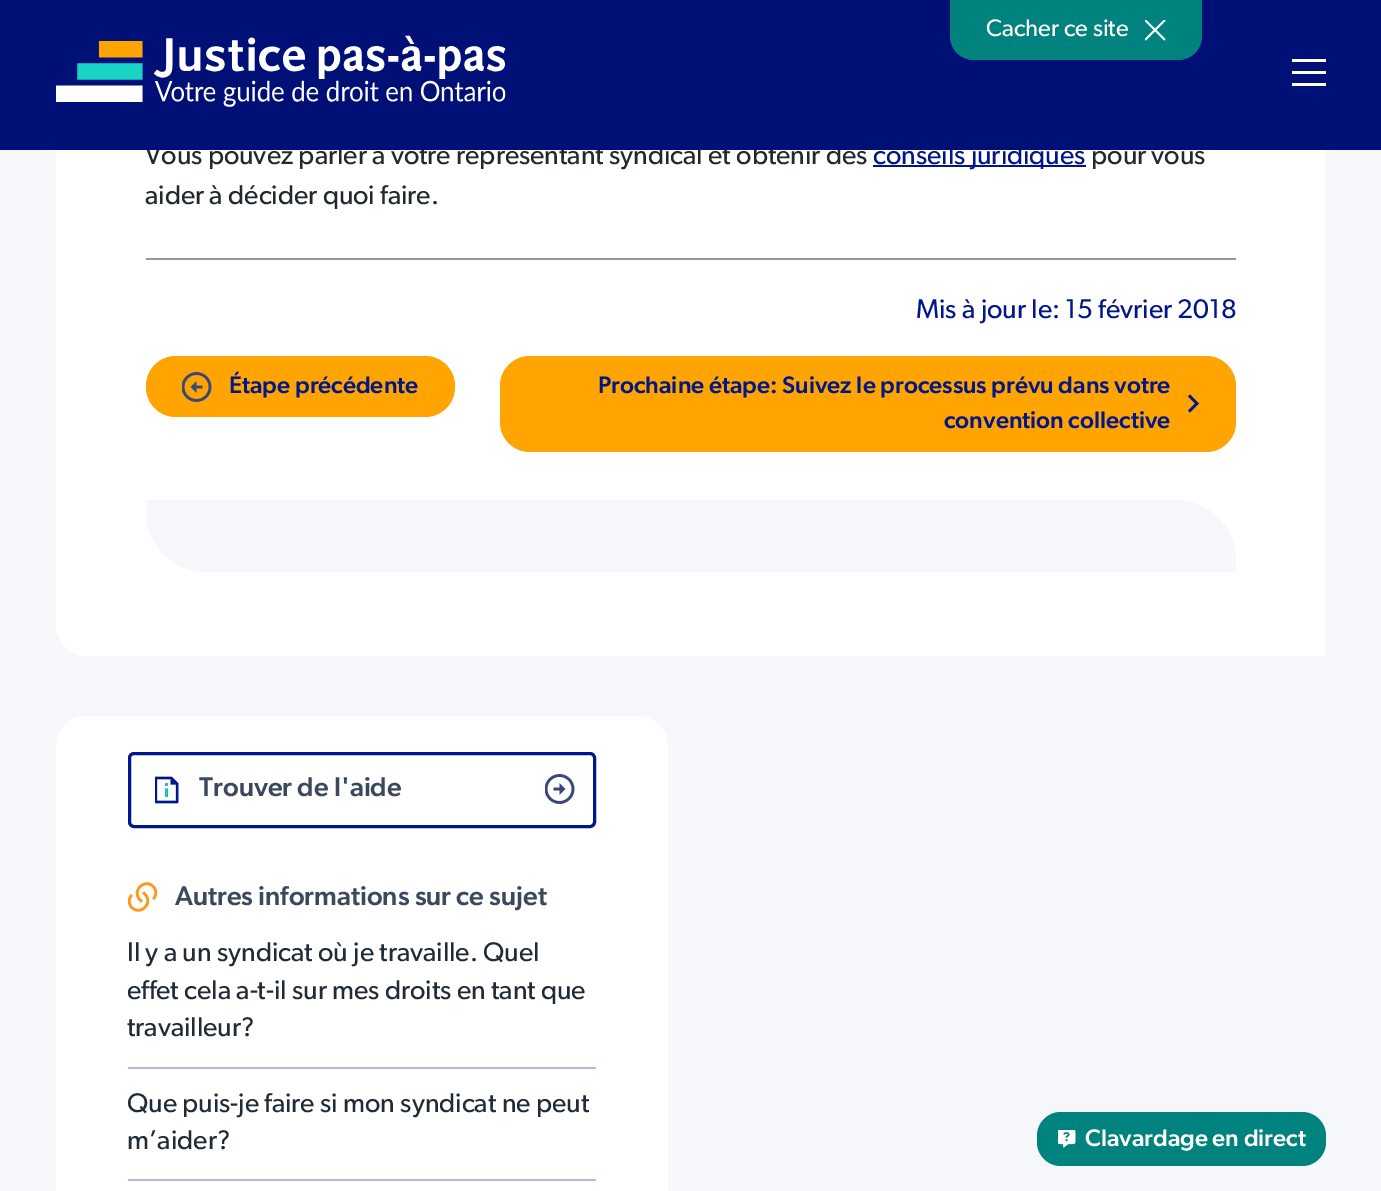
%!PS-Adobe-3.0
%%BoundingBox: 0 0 1381 1191
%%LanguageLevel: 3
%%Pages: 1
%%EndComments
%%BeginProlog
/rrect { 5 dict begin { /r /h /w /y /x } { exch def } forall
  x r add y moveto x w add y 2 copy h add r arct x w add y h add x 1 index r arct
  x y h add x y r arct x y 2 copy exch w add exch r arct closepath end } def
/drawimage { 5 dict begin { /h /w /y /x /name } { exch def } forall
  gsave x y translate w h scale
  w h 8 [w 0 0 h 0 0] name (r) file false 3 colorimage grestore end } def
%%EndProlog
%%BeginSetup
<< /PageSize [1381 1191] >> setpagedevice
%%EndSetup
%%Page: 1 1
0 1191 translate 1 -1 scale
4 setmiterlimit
0.965 0.969 0.984 setrgbcolor
0 0 1381 1191 rectfill
1 setgray
newpath 56 -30 moveto 1296 -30 lineto 1312.5 -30 1326 -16.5 1326 0 curveto 1326 656 lineto 86 656 lineto 69.5 656 56 642.5 56 626 curveto closepath fill
0 0.086 0.537 setrgbcolor
873 165 213 2 rectfill
0.6 setgray
146 258 1090 2 rectfill
1 0.643 0 setrgbcolor
146 356 309 61 30 rrect fill
(images/3.raw) 182 372 30 30 drawimage
500 356 736 96 30 rrect fill
0 0.086 0.537 setrgbcolor
newpath 1188 410.5 moveto 1195 403.5 lineto 1188 396.5 lineto 1190 394.5 lineto 1199 403.5 lineto 1190 412.5 lineto closepath eofill
0.965 0.969 0.984 setrgbcolor
newpath 146 500 moveto 1176 500 lineto 1209 500 1236 527 1236 560 curveto 1236 572 lineto 206 572 lineto 173 572 146 545 146 512 curveto closepath fill
1 setgray
56 716 612 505 30 rrect fill
0 0.086 0.537 setrgbcolor
3 setlinewidth
129.5 753.5 465 73 4.5 rrect stroke
(images/4.raw) 155 776 24 28 drawimage
(images/5.raw) 545 774 30 30 drawimage
(images/6.raw) 128 882 30 30 drawimage
0.702 0.725 0.863 setrgbcolor
128 1067 468 2 rectfill
128 1179 468 2 rectfill
0 0.51 0.494 setrgbcolor
1037 1112 289 54 24 rrect fill
(images/7.raw) 1058 1130 18 18 drawimage
/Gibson-Regular [27 0 0 -27 0 0] selectfont
0.133 0.161 0.176 setrgbcolor
145 164 moveto (Vous pouvez parler à votre représentant syndical et obtenir des) show
0 0.086 0.537 setrgbcolor
873 164 moveto (conseils juridiques) show
0 0.063 0.463 setrgbcolor
0 0 1381 150 rectfill
0 0.51 0.494 setrgbcolor
newpath 950 0 moveto 1202 0 lineto 1202 36 lineto 1202 49.5 1191.5 60 1178 60 curveto 974 60 lineto 960.5 60 950 49.5 950 36 curveto closepath fill
(images/1.raw) 1145 20 21 21 drawimage
/Gibson-Regular [24 0 0 -24 0 0] selectfont
1 setgray
986 36 moveto (Cacher ce site) show
1292 83 34 3 rectfill
1292 71 34 3 rectfill
1292 59 34 3 rectfill
(images/2.raw) 56 35 450 72 drawimage
/Gibson-Regular [27 0 0 -27 0 0] selectfont
0.133 0.161 0.176 setrgbcolor
1091 164 moveto (pour vous) show
145 204 moveto (aider à décider quoi faire.) show
0 0.086 0.537 setrgbcolor
916 318 moveto (Mis à jour le: 15 février 2018) show
/Gibson-Medium [24 0 0 -24 0 0] selectfont
229 393 moveto (Étape précédente) show
598 393 moveto (Prochaine étape: Suivez le processus prévu dans votre) show
944 428 moveto (convention collective) show
/Gibson-Medium [27 0 0 -27 0 0] selectfont
0.231 0.282 0.369 setrgbcolor
199 796 moveto (Trouver de l'aide) show
175 905 moveto (Autres informations sur ce sujet) show
/Gibson-Regular [27 0 0 -27 0 0] selectfont
0.129 0.169 0.212 setrgbcolor
127 961 moveto (Il y a un syndicat où je travaille. Quel) show
127 999 moveto (effet cela a-t-il sur mes droits en tant que) show
127 1036 moveto (travailleur?) show
127 1112 moveto (Que puis-je faire si mon syndicat ne peut) show
127 1149 moveto (m’aider?) show
/Gibson-Medium [24 0 0 -24 0 0] selectfont
1 setgray
1085 1146 moveto (Clavardage en direct) show
showpage
%%EOF
